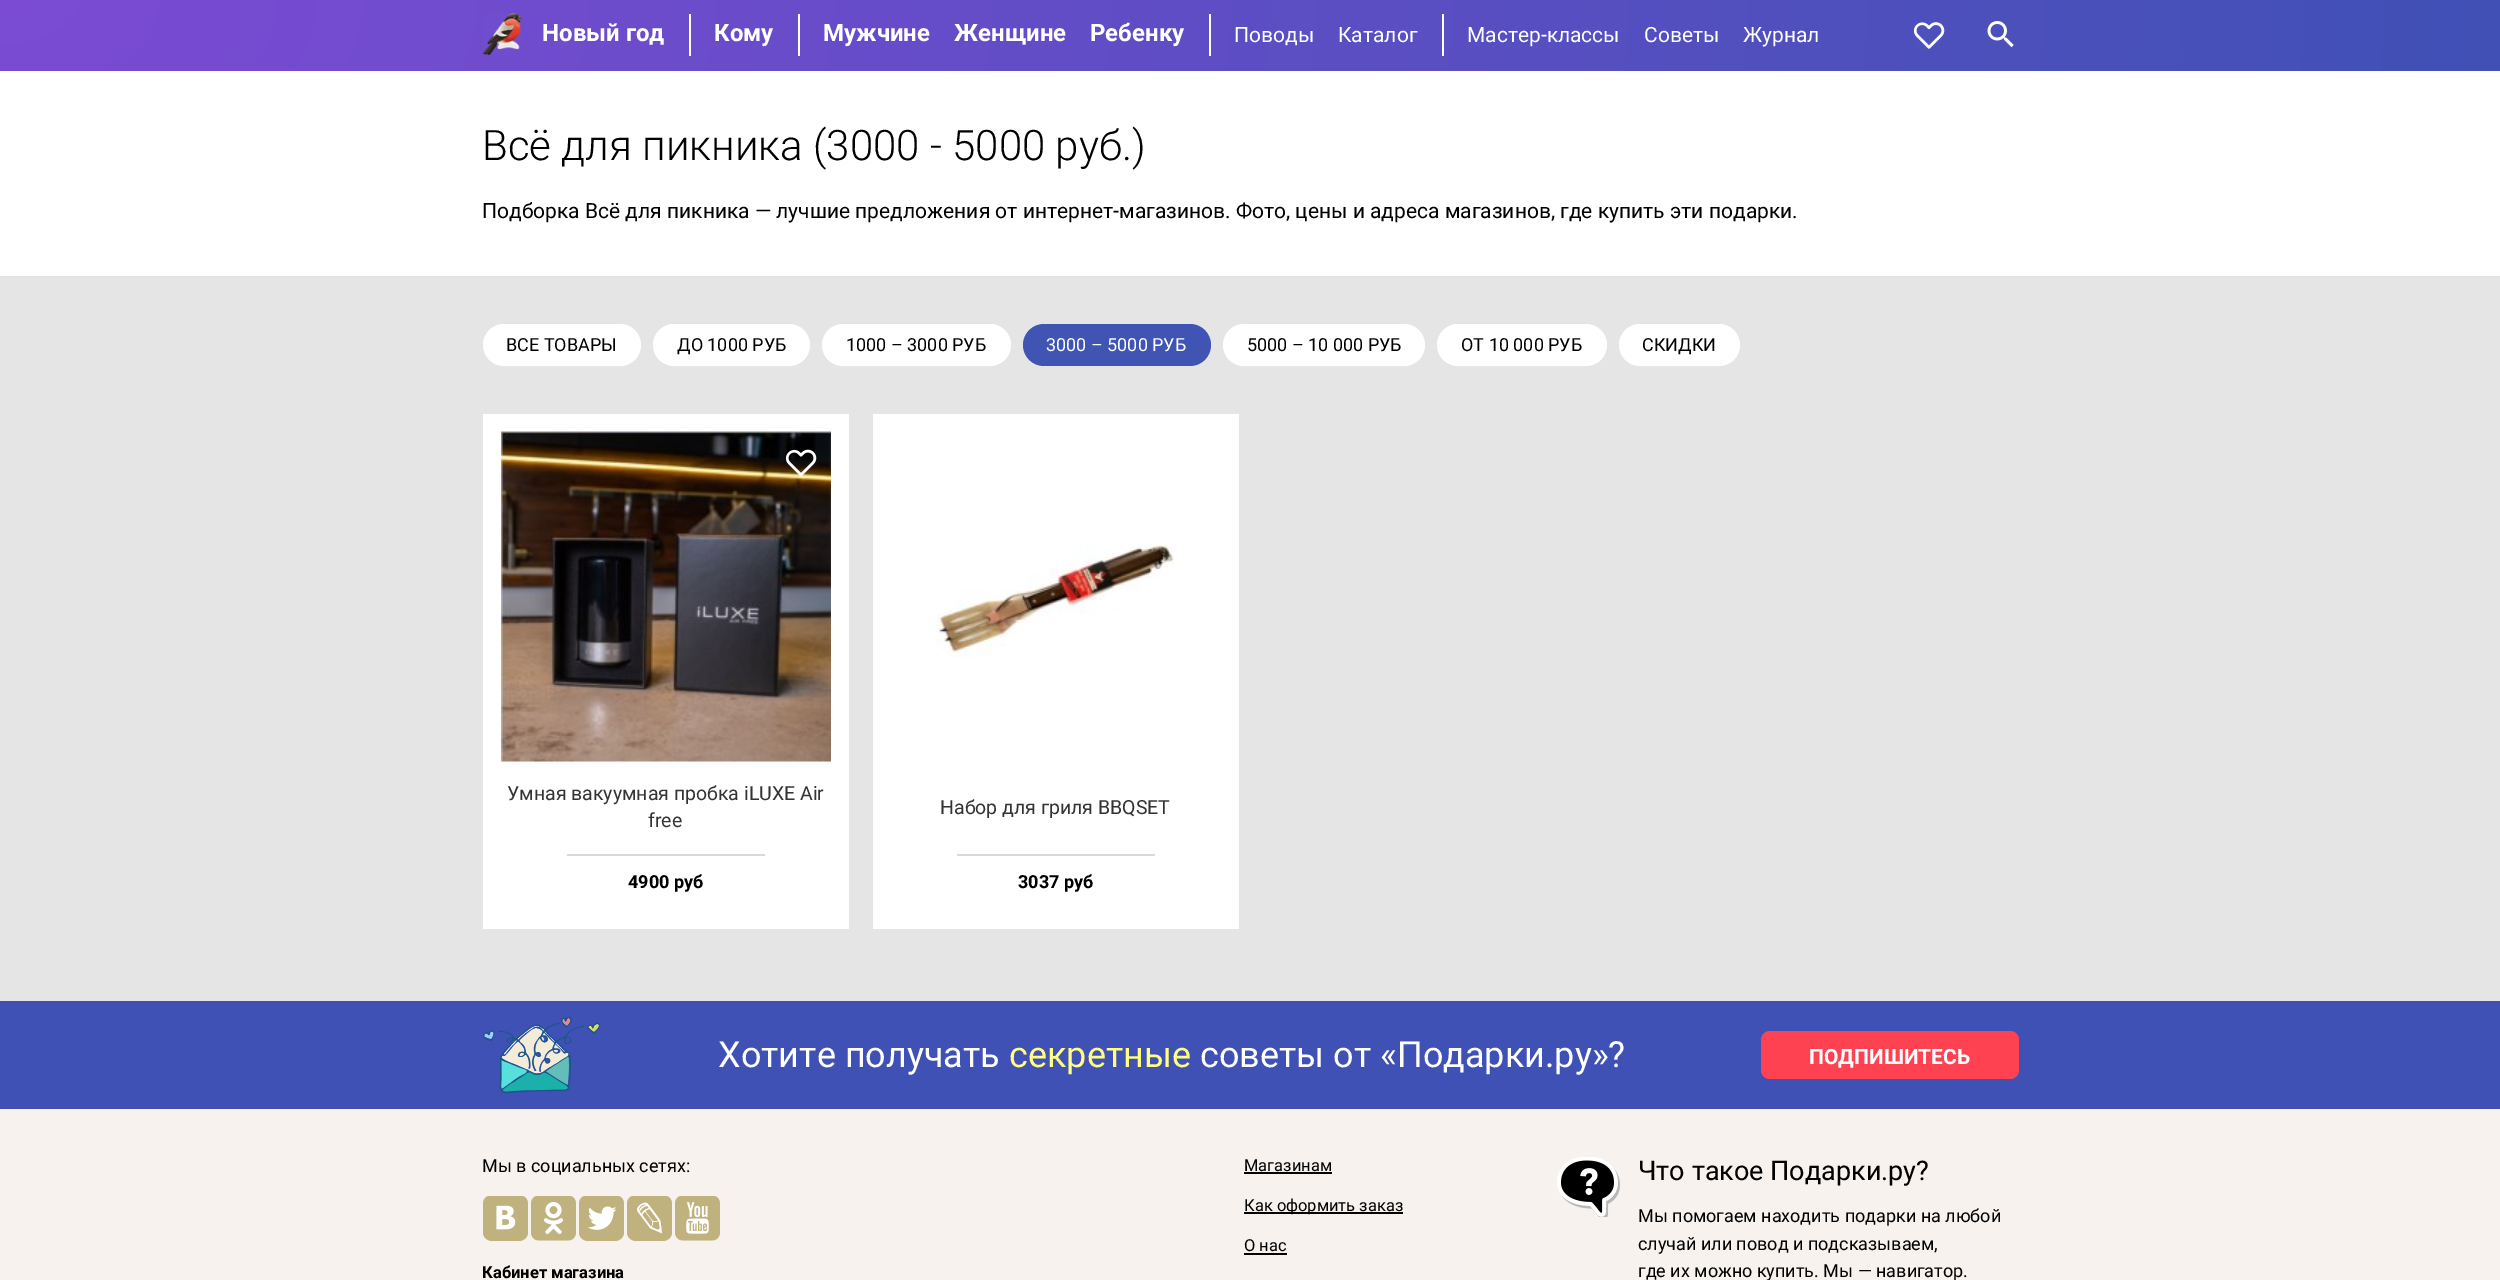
%!PS-Adobe-3.0
%%BoundingBox: 0 0 2500 1280
%%LanguageLevel: 3
%%Pages: 1
%%EndComments
%%BeginProlog
/rrect { 5 dict begin { /r /h /w /y /x } { exch def } forall
  x r add y moveto x w add y 2 copy h add r arct x w add y h add x 1 index r arct
  x y h add x y r arct x y 2 copy exch w add exch r arct closepath end } def
/drawimage { 5 dict begin { /h /w /y /x /name } { exch def } forall
  gsave x y translate w h scale
  w h 8 [w 0 0 h 0 0] name (r) file false 3 colorimage grestore end } def
%%EndProlog
%%BeginSetup
<< /PageSize [2500 1280] >> setpagedevice
%%EndSetup
%%Page: 1 1
0 1280 translate 1 -1 scale
4 setmiterlimit
1 setgray
0 0 2500 1280 rectfill
gsave newpath 0 0 moveto 2500 0 lineto 2500 71 lineto 0 71 lineto closepath clip newpath 0 -1.5 translate 2543 1475 scale
<< /ShadingType 3 /ColorSpace /DeviceRGB /Coords [0 0 0 0 0 1] /Extend [true true] /Function << /FunctionType 2 /Domain [0 1] /C0 [0.486 0.294 0.831] /C1 [0.247 0.318 0.71] /N 1 >> >> shfill grestore
(images/1.raw) 483 13 39 42 drawimage
689 14 2 42 rectfill
798 14 2 42 rectfill
1209 14 2 42 rectfill
1442 14 2 42 rectfill
(images/2.raw) 1913 22 32 27 drawimage
(images/3.raw) 1987 21 27 27 drawimage
0.898 setgray
0 276 2500 725 rectfill
1 setgray
483 324 158 42 21 rrect fill
653 324 157 42 21 rrect fill
822 324 189 42 21 rrect fill
0.251 0.329 0.702 setrgbcolor
1023 324 188 42 21 rrect fill
1 setgray
1223 324 202 42 21 rrect fill
1437 324 170 42 21 rrect fill
1619 324 121 42 21 rrect fill
483 414 366 515 rectfill
(images/4.raw) 501 431 330 331 drawimage
(images/5.raw) 785 449 32 28 drawimage
0.851 setgray
567 854 198 2 rectfill
1 setgray
873 414 366 515 rectfill
(images/6.raw) 936 544 239 114 drawimage
0.851 setgray
957 854 198 2 rectfill
0.969 0.949 0.929 setrgbcolor
0 1109 2500 171 rectfill
0.247 0.318 0.71 setrgbcolor
0 1001 2500 108 rectfill
(images/7.raw) 483 1017 117 76 drawimage
1 0.259 0.322 setrgbcolor
1761 1031 258 48 9 rrect fill
(images/8.raw) 483 1196 45 45 drawimage
(images/9.raw) 531 1196 45 45 drawimage
(images/10.raw) 579 1196 45 45 drawimage
(images/11.raw) 627 1196 45 45 drawimage
(images/12.raw) 675 1196 45 45 drawimage
0 setgray
1244 1172 88 2 rectfill
1244 1212 159 2 rectfill
1244 1253 43 2 rectfill
(images/13.raw) 1557 1157 63 60 drawimage
/Roboto-Bold [24 0 0 -24 0 0] selectfont
1 setgray
542 41 moveto (Новый год) show
714 41 moveto (Кому) show
823 41 moveto (Мужчине) show
954 41 moveto (Женщине) show
1090 41 moveto (Ребенку) show
/Roboto-Regular [21 0 0 -21 0 0] selectfont
1234 42 moveto (Поводы) show
1338 42 moveto (Каталог) show
1467 42 moveto (Мастер-классы) show
1644 42 moveto (Советы) show
1743 42 moveto (Журнал) show
/Roboto-Light [42 0 0 -42 0 0] selectfont
0 setgray
482 160 moveto (Всё для пикника \(3000 - 5000 руб.\)) show
/Roboto-Regular [21 0 0 -21 0 0] selectfont
482 218 moveto (Подборка Всё для пикника — лучшие предложения от интернет-магазинов. Фото, цены и адреса магазинов, где купить эти подарки.) show
/Roboto-Regular [18 0 0 -18 0 0] selectfont
506 351 moveto (ВСЕ ТОВАРЫ) show
677 351 moveto (ДО 1000 РУБ) show
846 351 moveto (1000 – 3000 РУБ) show
1 setgray
1046 351 moveto (3000 – 5000 РУБ) show
0 setgray
1247 351 moveto (5000 – 10 000 РУБ) show
1461 351 moveto (ОТ 10 000 РУБ) show
1642 351 moveto (СКИДКИ) show
/Roboto-Regular [19.5 0 0 -19.5 0 0] selectfont
0.2 setgray
507 800 moveto (Умная вакуумная пробка iLUXE Air) show
648 827 moveto (free) show
/Roboto-Bold [18 0 0 -18 0 0] selectfont
0 setgray
628 888 moveto (4900 руб) show
/Roboto-Regular [19.5 0 0 -19.5 0 0] selectfont
0.2 setgray
940 814 moveto (Набор для гриля BBQSET) show
/Roboto-Bold [18 0 0 -18 0 0] selectfont
0 setgray
1018 888 moveto (3037 руб) show
/Roboto-Regular [36 0 0 -36 0 0] selectfont
1 setgray
718 1067 moveto (Хотите получать) show
1 0.996 0.502 setrgbcolor
1009 1067 moveto (секретные) show
1 setgray
1200 1067 moveto (советы от «Подарки.ру»?) show
/Roboto-Bold [21 0 0 -21 0 0] selectfont
1809 1064 moveto (ПОДПИШИТЕСЬ) show
/Roboto-Regular [18 0 0 -18 0 0] selectfont
0 setgray
482 1172 moveto (Мы в социальных сетях:) show
/Roboto-Bold [16.5 0 0 -16.5 0 0] selectfont
482 1278 moveto (Кабинет магазина) show
/Roboto-Regular [16.5 0 0 -16.5 0 0] selectfont
1244 1171 moveto (Магазинам) show
1244 1211 moveto (Как оформить заказ) show
1244 1251 moveto (О нас) show
/Roboto-Regular [27 0 0 -27 0 0] selectfont
1638 1180 moveto (Что такое Подарки.ру?) show
/Roboto-Regular [18 0 0 -18 0 0] selectfont
1638 1222 moveto (Мы помогаем находить подарки на любой) show
1638 1250 moveto (случай или повод и подсказываем,) show
1638 1277 moveto (где их можно купить. Мы — навигатор.) show
showpage
%%EOF
